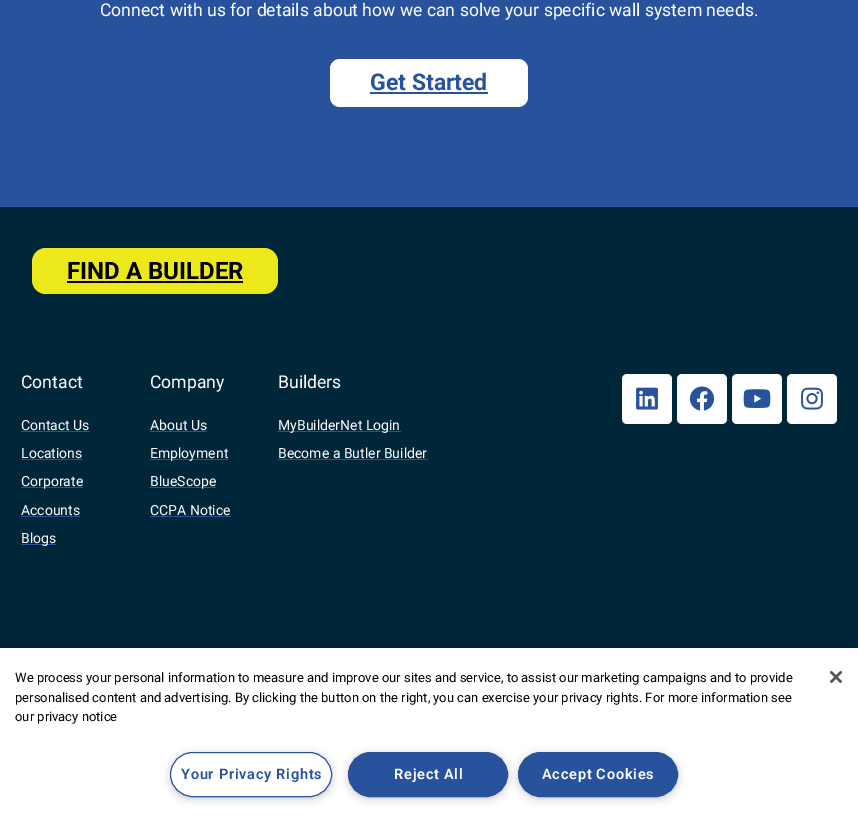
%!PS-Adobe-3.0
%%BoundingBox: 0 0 858 823
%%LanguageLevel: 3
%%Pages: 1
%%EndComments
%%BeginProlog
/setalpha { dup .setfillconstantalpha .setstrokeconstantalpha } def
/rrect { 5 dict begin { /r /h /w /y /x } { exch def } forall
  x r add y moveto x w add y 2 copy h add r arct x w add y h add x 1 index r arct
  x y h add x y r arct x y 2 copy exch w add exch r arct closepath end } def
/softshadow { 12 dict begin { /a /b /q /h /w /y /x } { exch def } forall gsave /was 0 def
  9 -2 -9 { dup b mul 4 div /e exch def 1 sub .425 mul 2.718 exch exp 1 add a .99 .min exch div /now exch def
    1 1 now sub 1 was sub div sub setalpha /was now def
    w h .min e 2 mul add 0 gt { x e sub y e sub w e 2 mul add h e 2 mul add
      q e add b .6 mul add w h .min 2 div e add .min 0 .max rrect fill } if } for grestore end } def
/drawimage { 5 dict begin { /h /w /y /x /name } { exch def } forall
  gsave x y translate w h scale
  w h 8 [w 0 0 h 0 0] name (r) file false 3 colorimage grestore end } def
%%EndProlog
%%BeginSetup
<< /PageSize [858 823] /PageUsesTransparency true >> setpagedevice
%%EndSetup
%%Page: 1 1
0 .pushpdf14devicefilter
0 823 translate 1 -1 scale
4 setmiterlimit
0.157 0.322 0.608 setrgbcolor
0 0 858 823 rectfill
1 setgray
330 59 198 48 10 rrect fill
0.157 0.322 0.608 setrgbcolor
370 92 118 2 rectfill
0 0.149 0.227 setrgbcolor
0 207 858 441 rectfill
0.925 0.91 0.102 setrgbcolor
32 248 246 46 14 rrect fill
0 setgray
67 281 176 2 rectfill
0.157 0.322 0.608 setrgbcolor
21 431 69 1 rectfill
21 459 62 1 rectfill
21 487 62 1 rectfill
21 516 59 1 rectfill
21 544 35 1 rectfill
150 431 57 1 rectfill
150 459 78 1 rectfill
150 487 66 1 rectfill
150 516 81 1 rectfill
278 431 123 1 rectfill
278 459 150 1 rectfill
1 setgray
622 374 50 50 5 rrect fill
(images/1.raw) 636 387 22 23 drawimage
677 374 50 50 5 rrect fill
(images/2.raw) 689 386 26 25 drawimage
732 374 50 50 5 rrect fill
(images/3.raw) 743 389 28 19 drawimage
787 374 50 50 5 rrect fill
(images/4.raw) 801 387 22 23 drawimage
0 setgray
0 648 858 175 0 9 0.2 softshadow
1 setgray
0 648 858 175 rectfill
0.6 setgray
173 757 156 39 19.5 5 1 softshadow
1 setgray
170.5 752.5 161 44 22 rrect gsave fill grestore
0.157 0.322 0.608 setrgbcolor
stroke
0.6 setgray
521 757 154 39 19.5 5 1 softshadow
0.157 0.322 0.608 setrgbcolor
518.5 752.5 159 44 22 rrect gsave fill grestore
stroke
0.6 setgray
351 757 154 39 19.5 5 1 softshadow
0.157 0.322 0.608 setrgbcolor
348.5 752.5 159 44 22 rrect gsave fill grestore
stroke
(images/5.raw) 830 671 12 12 drawimage
/Roboto-Regular [17.6 0 0 -17.6 0 0] selectfont
1 setgray
100 16 moveto (Connect with us for details about how we can solve your specific wall system needs.) show
/Roboto-Bold [23 0 0 -23 0 0] selectfont
0.157 0.322 0.608 setrgbcolor
370 90 moveto (Get Started) show
/Roboto-Bold [24 0 0 -24 0 0] selectfont
0 setgray
67 279 moveto (FIND A BUILDER) show
/Roboto-Regular [17.6 0 0 -17.6 0 0] selectfont
1 setgray
21 388 moveto (Contact) show
/Roboto-Regular [14 0 0 -14 0 0] selectfont
21 430 moveto (Contact Us) show
21 458 moveto (Locations) show
21 486 moveto (Corporate) show
21 515 moveto (Accounts) show
21 543 moveto (Blogs) show
/Roboto-Regular [17.6 0 0 -17.6 0 0] selectfont
150 388 moveto (Company) show
/Roboto-Regular [14 0 0 -14 0 0] selectfont
150 430 moveto (About Us) show
150 458 moveto (Employment) show
150 486 moveto (BlueScope) show
150 515 moveto (CCPA Notice) show
/Roboto-Regular [17.6 0 0 -17.6 0 0] selectfont
278 388 moveto (Builders) show
/Roboto-Regular [14 0 0 -14 0 0] selectfont
278 430 moveto (MyBuilderNet Login) show
278 458 moveto (Become a Butler Builder) show
/Roboto-Regular [13 0 0 -13 0 0] selectfont
0 setgray
15 682 moveto (We process your personal information to measure and improve our sites and service, to assist our marketing campaigns and to provide) show
15 702 moveto (personalised content and advertising. By clicking the button on the right, you can exercise your privacy rights. For more information see) show
15 721 moveto (our privacy notice) show
/Roboto-SemiBold [14.5 0 0 -14.5 0 0] selectfont
0.157 0.322 0.608 setrgbcolor
181 779 moveto 0.75 0 (Your Privacy Rights) ashow
1 setgray
394 779 moveto 0.75 0 (Reject All) ashow
542 779 moveto 0.75 0 (Accept Cookies) ashow
.poppdf14devicefilter showpage
%%EOF
